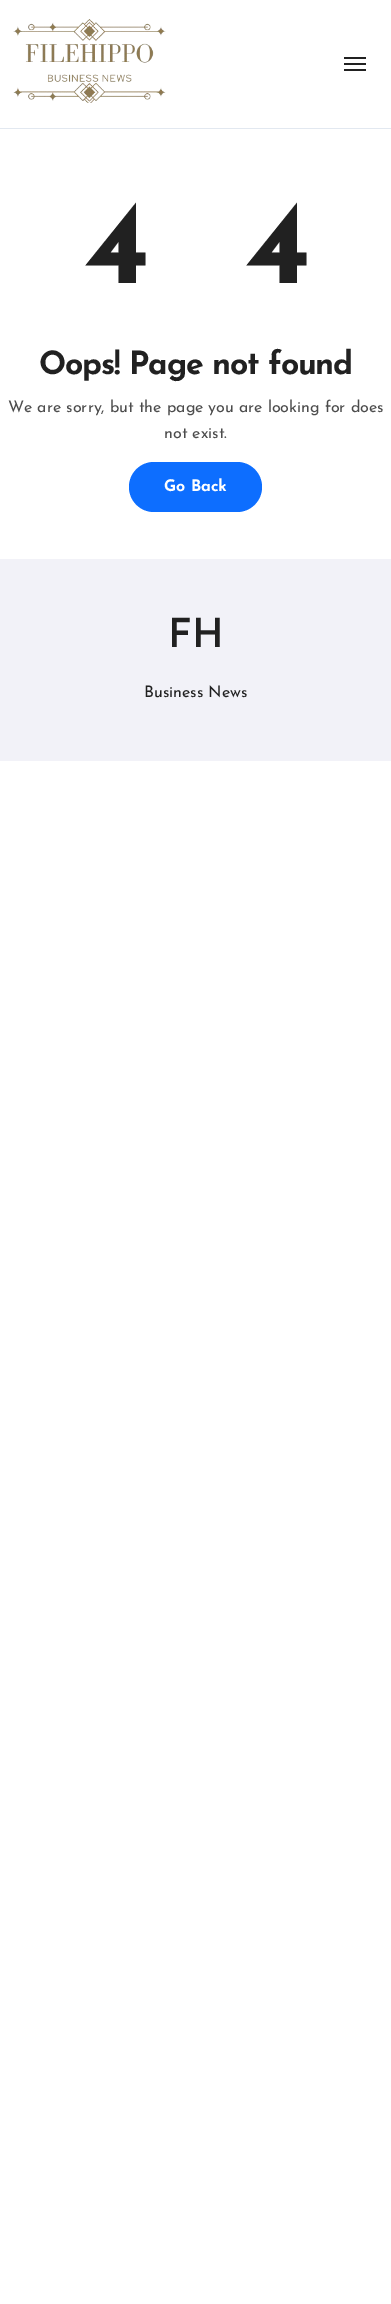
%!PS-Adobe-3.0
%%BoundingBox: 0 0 391 2304
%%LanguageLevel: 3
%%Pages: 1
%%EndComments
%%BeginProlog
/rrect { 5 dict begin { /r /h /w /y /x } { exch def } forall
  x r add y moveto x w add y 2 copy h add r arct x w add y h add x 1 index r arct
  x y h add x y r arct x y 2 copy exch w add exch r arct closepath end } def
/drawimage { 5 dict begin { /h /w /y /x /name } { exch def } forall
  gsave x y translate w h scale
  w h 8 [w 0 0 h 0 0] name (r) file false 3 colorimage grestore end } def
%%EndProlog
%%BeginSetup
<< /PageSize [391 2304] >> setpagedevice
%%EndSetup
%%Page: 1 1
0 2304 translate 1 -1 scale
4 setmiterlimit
1 setgray
0 0 391 2304 rectfill
0.886 0.91 0.941 setrgbcolor
0 128 391 1 rectfill
(images/1.raw) 13 19 153 84 drawimage
0.129 setgray
344 57 22 2 rectfill
344 63 22 2 rectfill
344 69 22 2 rectfill
0.051 0.431 1 setrgbcolor
129 462 133 50 25 rrect fill
0.949 0.949 0.973 setrgbcolor
0 559 391 202 rectfill
/JosefinSans-Bold [120 0 0 -120 0 0] selectfont
0.129 setgray
84 283 moveto -4 0 (4) ashow
245 283 moveto -4 0 (4) ashow
/JosefinSans-Bold [32 0 0 -32 0 0] selectfont
39 374 moveto -1.1 0 (Oops! Page not found) ashow
/JosefinSans-Regular [16 0 0 -16 0 0] selectfont
0.298 setgray
8 412 moveto (We are sorry, but the page you are looking for does) show
164 438 moveto (not exist.) show
/JosefinSans-Bold [16 0 0 -16 0 0] selectfont
1 setgray
164 491 moveto (Go Back) show
/JosefinSans-SemiBold [40 0 0 -40 0 0] selectfont
0.129 setgray
168 647 moveto (FH) show
/JosefinSans-Regular [16 0 0 -16 0 0] selectfont
144 697 moveto (Business News) show
showpage
%%EOF
